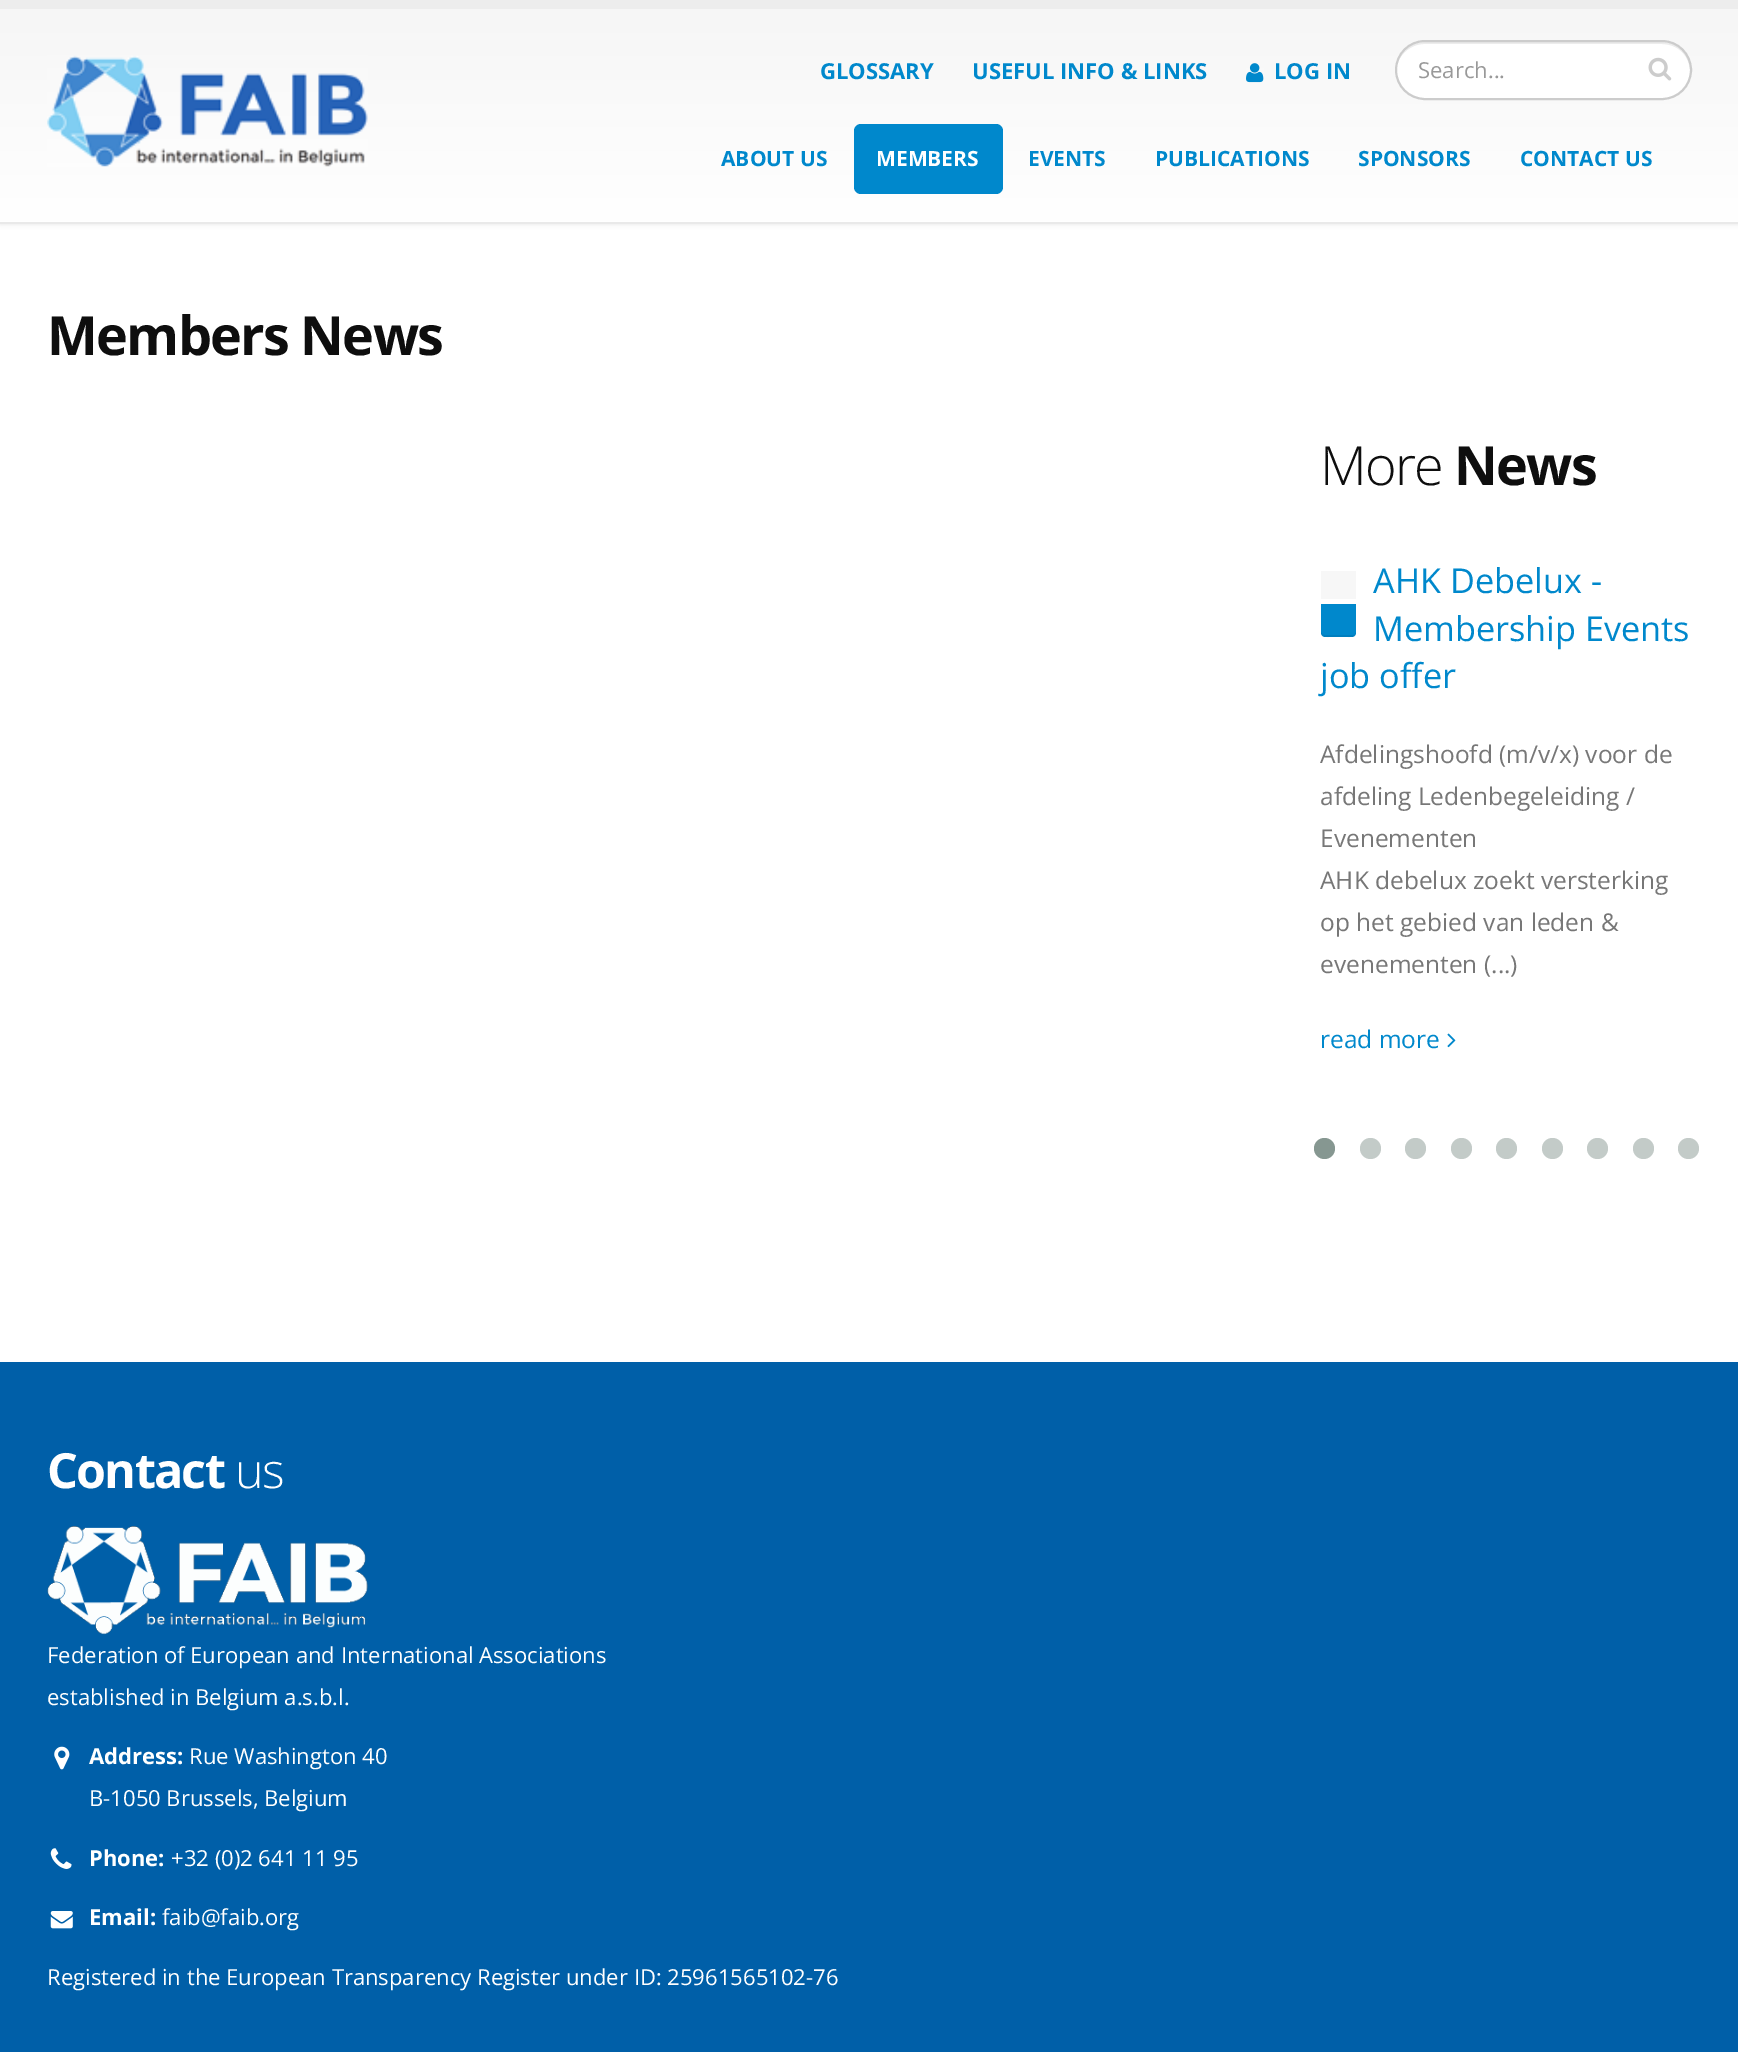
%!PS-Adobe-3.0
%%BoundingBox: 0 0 1738 2052
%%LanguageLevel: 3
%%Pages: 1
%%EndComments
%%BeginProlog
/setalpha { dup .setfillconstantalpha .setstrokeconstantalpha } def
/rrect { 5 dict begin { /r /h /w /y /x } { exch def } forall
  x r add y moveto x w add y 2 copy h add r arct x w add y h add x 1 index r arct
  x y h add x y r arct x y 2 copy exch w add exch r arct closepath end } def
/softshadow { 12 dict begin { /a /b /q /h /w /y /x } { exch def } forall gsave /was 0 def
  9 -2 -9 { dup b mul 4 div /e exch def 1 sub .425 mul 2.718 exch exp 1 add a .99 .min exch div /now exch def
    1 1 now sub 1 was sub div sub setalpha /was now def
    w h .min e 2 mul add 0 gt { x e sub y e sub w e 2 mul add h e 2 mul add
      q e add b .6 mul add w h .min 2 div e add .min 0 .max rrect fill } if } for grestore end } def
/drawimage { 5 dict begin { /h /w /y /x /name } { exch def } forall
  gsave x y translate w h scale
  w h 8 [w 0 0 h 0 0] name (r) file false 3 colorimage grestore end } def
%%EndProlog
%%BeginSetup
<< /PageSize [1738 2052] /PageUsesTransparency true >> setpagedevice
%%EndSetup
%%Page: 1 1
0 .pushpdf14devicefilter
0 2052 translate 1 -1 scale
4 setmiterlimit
1 setgray
0 0 1738 2052 rectfill
0 setgray
0 0 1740 224 0 2.5 0.1 softshadow
gsave newpath 0 9 moveto 1738 9 lineto 1738 222 lineto 0 222 lineto closepath clip newpath
<< /ShadingType 2 /ColorSpace /DeviceRGB /Coords [870 9 870 222] /Extend [true true] /Function << /FunctionType 2 /Domain [0 1] /C0 [0.965 0.965 0.965] /C1 [1 1 1] /N 1 >> >> shfill grestore
0.929 setgray
0 0 1738 9 rectfill
0.914 setgray
0 222 1738 2 rectfill
(images/1.raw) 47 55 321 112 drawimage
(images/2.raw) 1246 63 18 20 drawimage
1 setgray
1395 40 297 60 30 rrect fill
0.925 setgray
newpath 1424 44 moveto 1662 44 lineto 1678 44 1690 56 1690 72 curveto 1690 76 1689 80 1688 84 curveto 1690 80 1691 75 1691 70 curveto 1691 55 1678 42 1663 42 curveto 1425 42 lineto 1414 42 1404 49 1400 58 curveto 1405 50 1414 44 1424 44 curveto closepath fill
0.8 setgray
2 setlinewidth
1396 41 295 58 29 rrect stroke
(images/3.raw) 1648 57 24 24 drawimage
0 0.533 0.8 setrgbcolor
854 124 149 70 7 rrect fill
0.969 setgray
1321 571 35 28 rectfill
0 0.533 0.8 setrgbcolor
newpath 1321 604 moveto 1356 604 lineto 1356 633 lineto 1356 635 1354 637 1352 637 curveto 1325 637 lineto 1323 637 1321 635 1321 633 curveto closepath fill
0.07 setalpha
0 setgray
newpath 1325 635 moveto 1323 635 1321 634 1321 632 curveto 1321 637.5 1325 637 1329.5 637 curveto 1347.5 637 lineto 1352 637 1356 637.5 1356 632 curveto 1356 634 1355 635 1353 635 curveto closepath fill
1 setalpha
(images/4.raw) 1447 1033 9 15 drawimage
0.525 0.592 0.569 setrgbcolor
newpath 1324.5 1148.5 10.5 0 360 arc closepath fill
0.765 0.796 0.784 setrgbcolor
newpath 1370.5 1148.5 10.5 0 360 arc closepath fill
newpath 1415.5 1148.5 10.5 0 360 arc closepath fill
newpath 1461.5 1148.5 10.5 0 360 arc closepath fill
newpath 1506.5 1148.5 10.5 0 360 arc closepath fill
newpath 1552.5 1148.5 10.5 0 360 arc closepath fill
newpath 1597.5 1148.5 10.5 0 360 arc closepath fill
newpath 1643.5 1148.5 10.5 0 360 arc closepath fill
newpath 1688.5 1148.5 10.5 0 360 arc closepath fill
0 0.373 0.659 setrgbcolor
0 1362 1738 690 rectfill
(images/5.raw) 47 1526 321 109 drawimage
(images/6.raw) 54 1746 16 24 drawimage
(images/7.raw) 50 1848 22 21 drawimage
(images/8.raw) 50 1911 23 18 drawimage
/OpenSans-Bold [22.05 0 0 -22.05 0 0] selectfont
0 0.533 0.8 setrgbcolor
820 79 moveto (GLOSSARY) show
972 79 moveto (USEFUL INFO & LINKS) show
1274 79 moveto (LOG IN) show
/OpenSans-Regular [22.05 0 0 -22.05 0 0] selectfont
0.6 setgray
1418 78 moveto (Search...) show
/OpenSans-Bold [21 0 0 -21 0 0] selectfont
0 0.533 0.8 setrgbcolor
721 166 moveto (ABOUT US) show
1 setgray
876 166 moveto (MEMBERS) show
0 0.533 0.8 setrgbcolor
1028 166 moveto (EVENTS) show
1155 166 moveto (PUBLICATIONS) show
1358 166 moveto (SPONSORS) show
1520 166 moveto (CONTACT US) show
/OpenSans-Bold [54 0 0 -54 0 0] selectfont
0.055 setgray
47 355 moveto -1.75 0 (Members News) ashow
/OpenSans-Light [54 0 0 -54 0 0] selectfont
1320 485 moveto -1.75 0 (More) ashow
/OpenSans-Bold [54 0 0 -54 0 0] selectfont
1454 485 moveto -1.75 0 (News) ashow
/OpenSans-Regular [34.25 0 0 -34.25 0 0] selectfont
0 0.533 0.8 setrgbcolor
1373 593 moveto (AHK Debelux -) show
1373 641 moveto (Membership Events) show
1320 688 moveto (job offer) show
/OpenSans-Regular [24.5 0 0 -24.5 0 0] selectfont
0.467 setgray
1320 763 moveto (Afdelingshoofd \(m/v/x\) voor de) show
1320 805 moveto (afdeling Ledenbegeleiding /) show
1320 847 moveto (Evenementen) show
1320 889 moveto (AHK debelux zoekt versterking) show
1320 931 moveto (op het gebied van leden &) show
1320 973 moveto (evenementen \(...\)) show
0 0.533 0.8 setrgbcolor
1320 1048 moveto (read more) show
/OpenSans-Bold [48.5 0 0 -48.5 0 0] selectfont
1 setgray
47 1488 moveto -1.75 0 (Contact) ashow
/OpenSans-Light [48.5 0 0 -48.5 0 0] selectfont
235 1488 moveto -1.75 0 (us) ashow
/OpenSans-Regular [22.05 0 0 -22.05 0 0] selectfont
47 1663 moveto (Federation of European and International Associations) show
47 1705 moveto (established in Belgium a.s.b.l.) show
/OpenSans-Bold [22.05 0 0 -22.05 0 0] selectfont
89 1764 moveto (Address:) show
/OpenSans-Regular [22.05 0 0 -22.05 0 0] selectfont
189 1764 moveto (Rue Washington 40) show
89 1806 moveto (B-1050 Brussels, Belgium) show
/OpenSans-Bold [22.05 0 0 -22.05 0 0] selectfont
89 1866 moveto (Phone:) show
/OpenSans-Regular [22.05 0 0 -22.05 0 0] selectfont
171 1866 moveto (+32 \(0\)2 641 11 95) show
/OpenSans-Bold [22.05 0 0 -22.05 0 0] selectfont
89 1925 moveto (Email:) show
/OpenSans-Regular [22.05 0 0 -22.05 0 0] selectfont
162 1925 moveto (faib@faib.org) show
47 1985 moveto (Registered in the European Transparency Register under ID: 25961565102-76) show
.poppdf14devicefilter showpage
%%EOF
